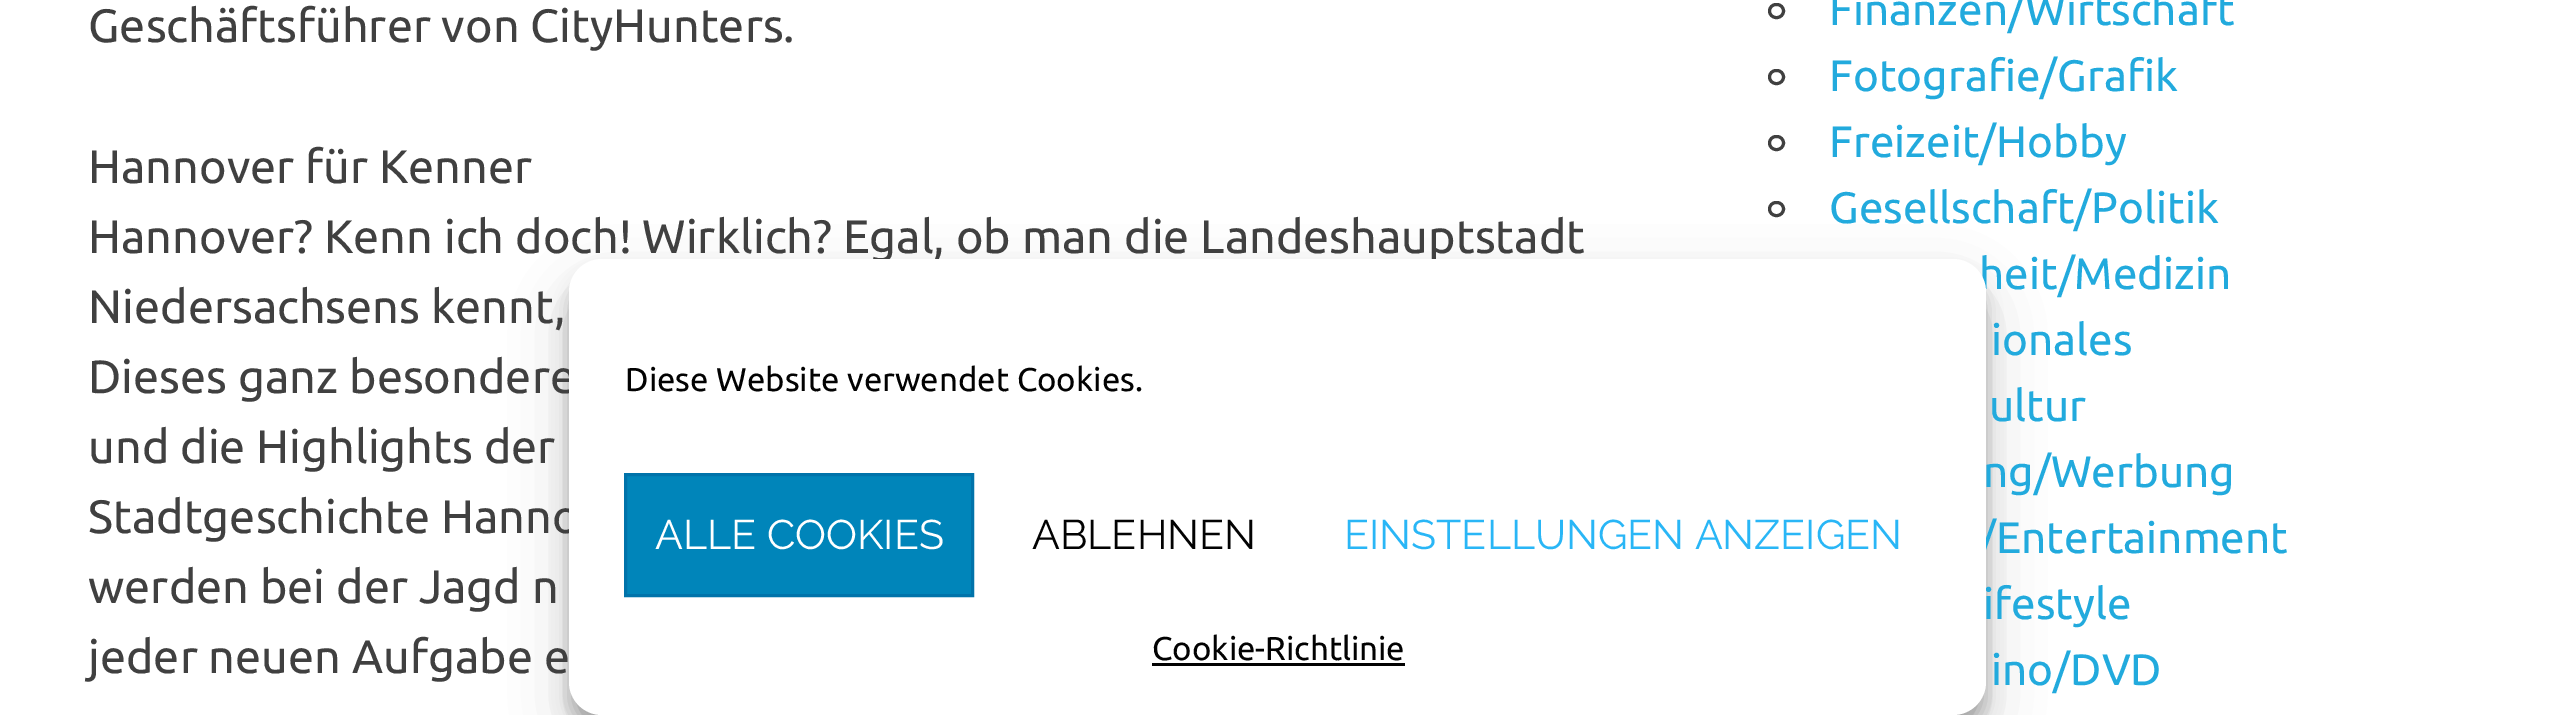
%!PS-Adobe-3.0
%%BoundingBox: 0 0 2555 715
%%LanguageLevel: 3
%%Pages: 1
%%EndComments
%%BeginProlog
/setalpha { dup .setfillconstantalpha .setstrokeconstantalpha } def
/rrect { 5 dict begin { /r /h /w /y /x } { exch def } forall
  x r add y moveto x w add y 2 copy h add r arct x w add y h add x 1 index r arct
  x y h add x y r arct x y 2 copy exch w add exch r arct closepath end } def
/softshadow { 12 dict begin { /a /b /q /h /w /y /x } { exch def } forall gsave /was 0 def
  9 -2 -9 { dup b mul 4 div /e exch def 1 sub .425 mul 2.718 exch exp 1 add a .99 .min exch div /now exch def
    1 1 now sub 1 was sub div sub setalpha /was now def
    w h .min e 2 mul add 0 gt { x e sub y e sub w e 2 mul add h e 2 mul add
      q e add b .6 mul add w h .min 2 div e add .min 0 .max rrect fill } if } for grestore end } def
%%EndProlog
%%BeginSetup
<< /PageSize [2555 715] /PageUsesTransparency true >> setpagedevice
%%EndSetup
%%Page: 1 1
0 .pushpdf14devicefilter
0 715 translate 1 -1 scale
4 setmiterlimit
1 setgray
0 0 2555 715 rectfill
0.251 setgray
3 setlinewidth
1769.5 4.5 14 13 6.5 rrect stroke
1769.5 70.5 14 13 6.5 rrect stroke
1769.5 136.5 14 13 6.5 rrect stroke
1769.5 202.5 14 13 6.5 rrect stroke
0 setgray
569 275 1417 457 33 8 0.23 softshadow
569 286 1417 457 33 27.5 0.19 softshadow
/Ubuntu-Regular [46.75 0 0 -46.75 0 0] selectfont
0.251 setgray
88 42 moveto (Geschäftsführer von CityHunters.) show
88 183 moveto (Hannover für Kenner) show
88 253 moveto (Hannover? Kenn ich doch! Wirklich? Egal, ob man die Landeshauptstadt) show
88 323 moveto (Niedersachsens kennt,) show
88 393 moveto (Dieses ganz besondere) show
88 463 moveto (und die Highlights der) show
88 533 moveto (Stadtgeschichte Hanno) show
88 603 moveto (werden bei der Jagd n) show
88 673 moveto (jeder neuen Aufgabe e) show
/Ubuntu-Regular [44 0 0 -44 0 0] selectfont
0.133 0.667 0.867 setrgbcolor
1829 25 moveto (Finanzen/Wirtschaft) show
1829 91 moveto (Fotografie/Grafik) show
1829 157 moveto (Freizeit/Hobby) show
1829 223 moveto (Gesellschaft/Politik) show
1979 289 moveto (heit/Medizin) show
1991 355 moveto (ionales) show
1989 421 moveto (ultur) show
1983 487 moveto (ng/Werbung) show
1979 553 moveto (/Entertainment) show
1983 619 moveto (ifestyle) show
1991 685 moveto (ino/DVD) show
1 setgray
569 259 1417 456 33 rrect fill
/Ubuntu-Regular [33 0 0 -33 0 0] selectfont
0.008 setgray
625 391 moveto (Diese Website verwendet Cookies.) show
0 0.522 0.729 setrgbcolor
newpath 625.5 474.5 moveto 972.5 474.5 lineto 972.5 595.5 lineto 625.5 595.5 lineto closepath gsave fill grestore
0 0.451 0.667 setrgbcolor
stroke
/Raleway-Regular [41.25 0 0 -41.25 0 0] selectfont
1 setgray
655 549 moveto (ALLE COOKIES) show
0.008 setgray
1032 549 moveto (ABLEHNEN) show
0.161 0.714 0.965 setrgbcolor
1344 549 moveto (EINSTELLUNGEN ANZEIGEN) show
/Ubuntu-Regular [33 0 0 -33 0 0] selectfont
0.008 setgray
1152 660 moveto (Cookie-Richtlinie) show
1152 663 253 3 rectfill
.poppdf14devicefilter showpage
%%EOF
